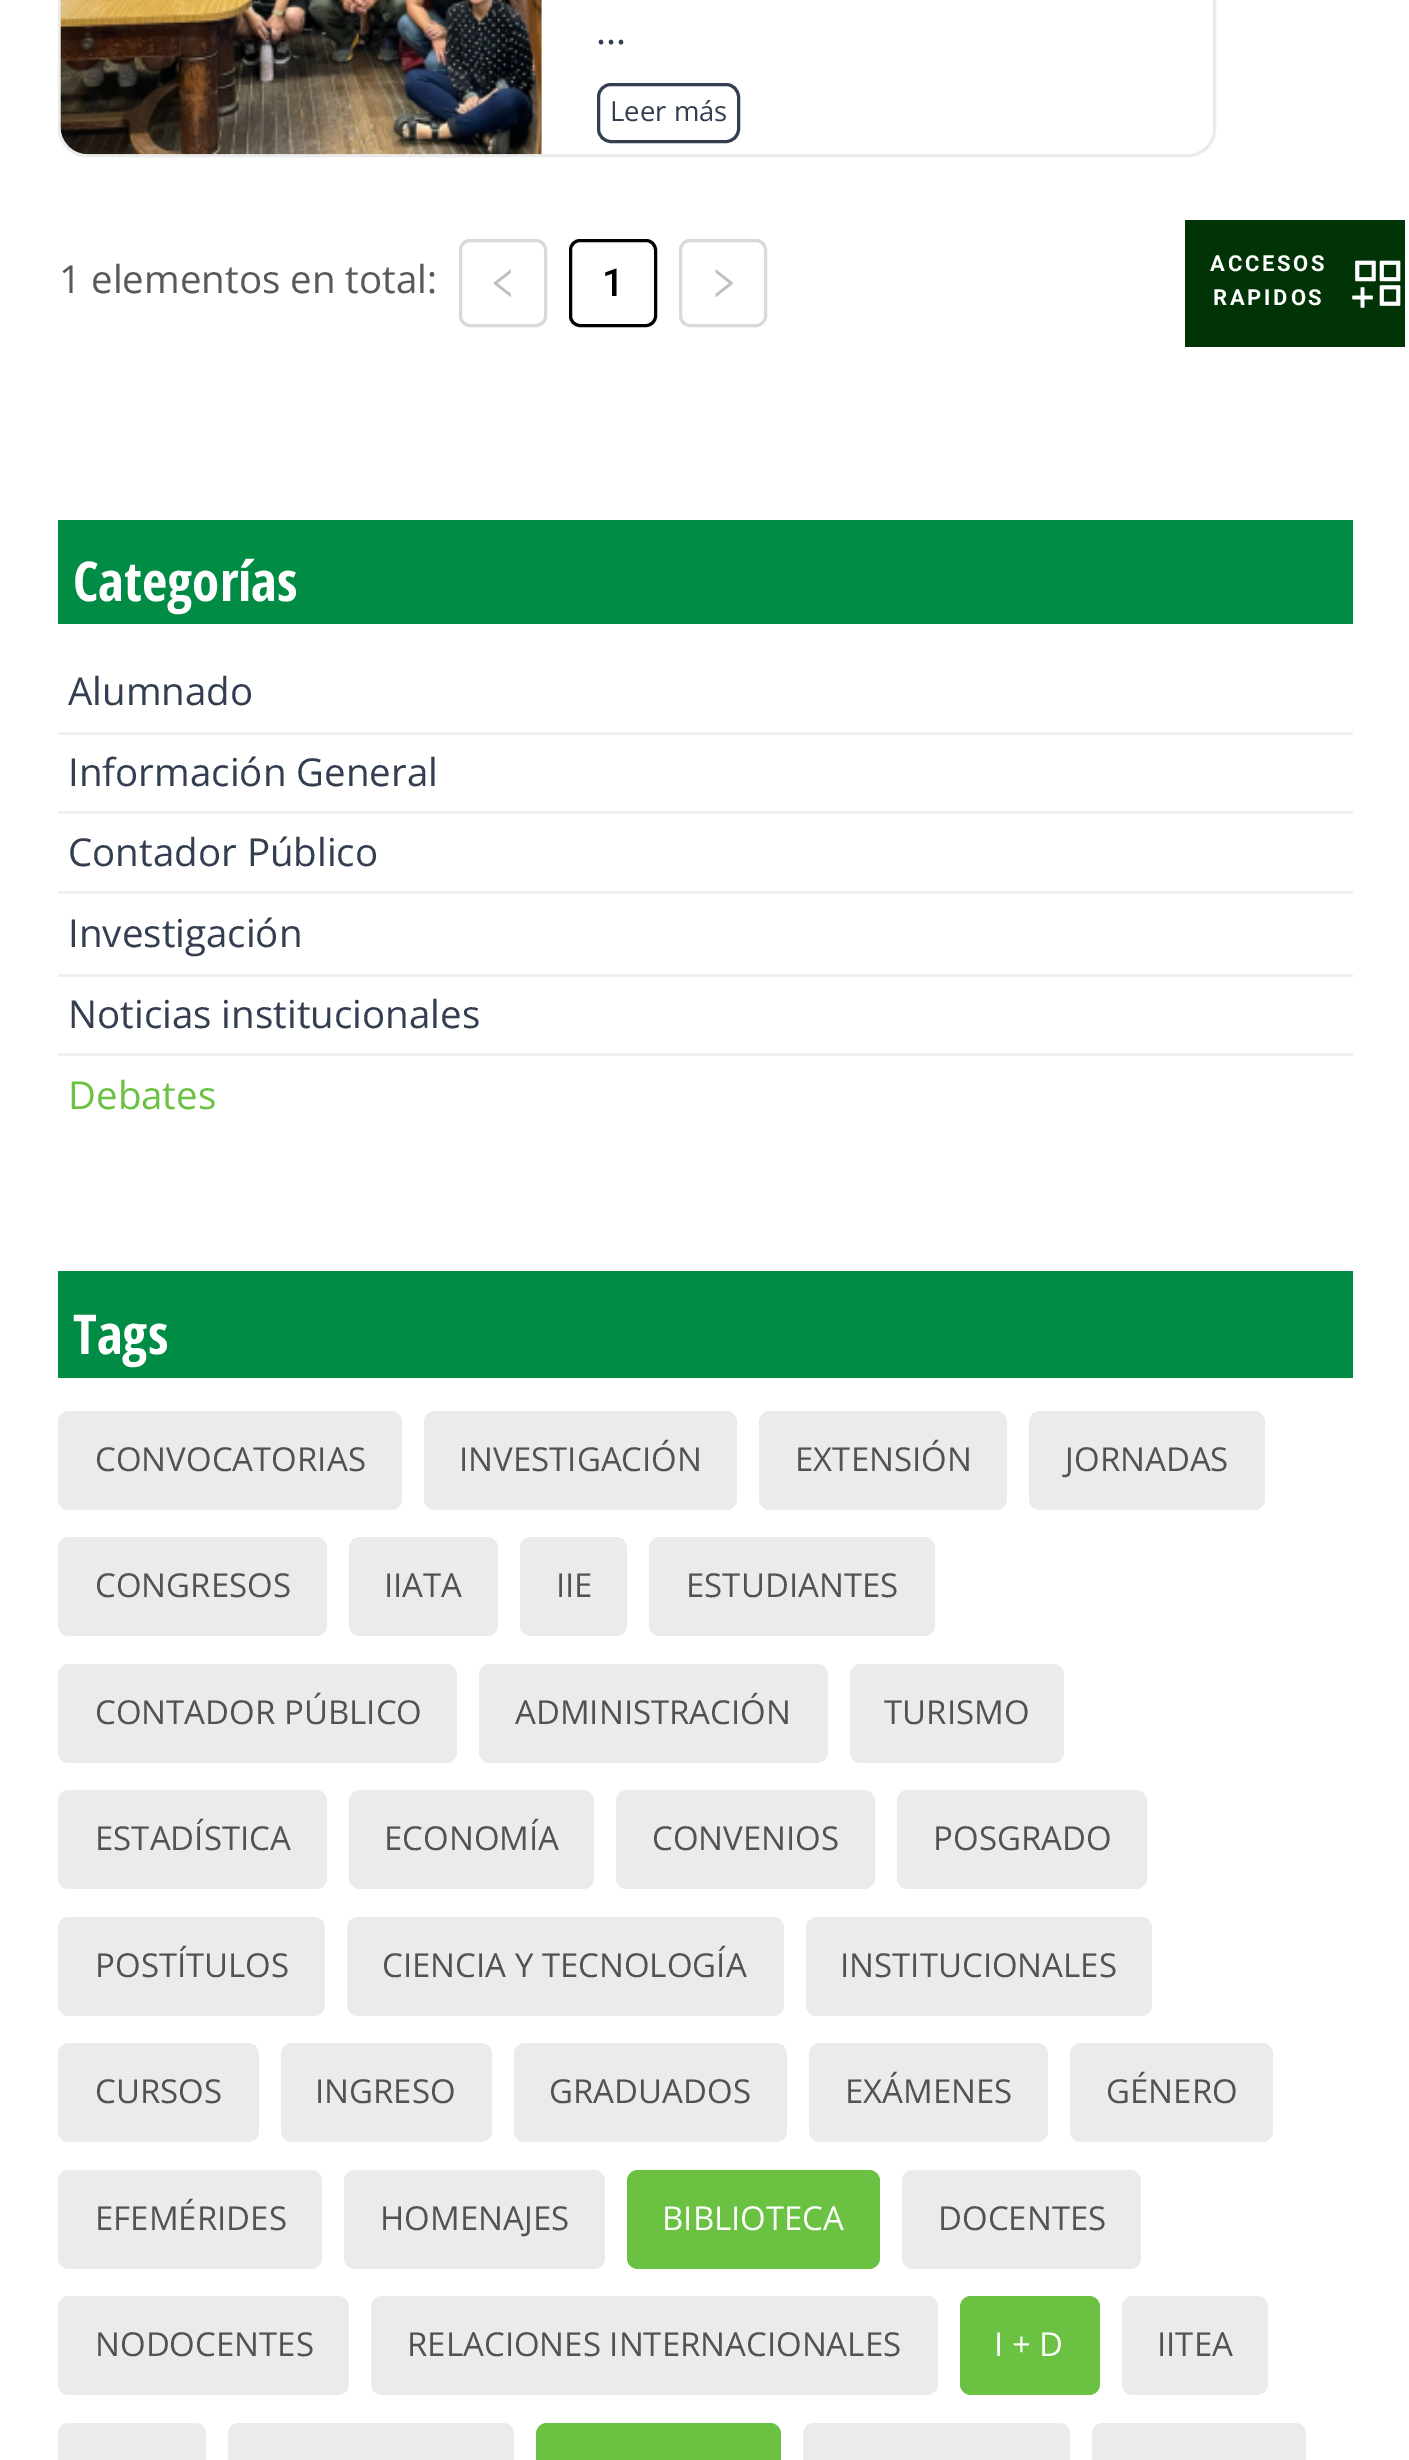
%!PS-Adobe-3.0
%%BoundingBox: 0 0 1409 2460
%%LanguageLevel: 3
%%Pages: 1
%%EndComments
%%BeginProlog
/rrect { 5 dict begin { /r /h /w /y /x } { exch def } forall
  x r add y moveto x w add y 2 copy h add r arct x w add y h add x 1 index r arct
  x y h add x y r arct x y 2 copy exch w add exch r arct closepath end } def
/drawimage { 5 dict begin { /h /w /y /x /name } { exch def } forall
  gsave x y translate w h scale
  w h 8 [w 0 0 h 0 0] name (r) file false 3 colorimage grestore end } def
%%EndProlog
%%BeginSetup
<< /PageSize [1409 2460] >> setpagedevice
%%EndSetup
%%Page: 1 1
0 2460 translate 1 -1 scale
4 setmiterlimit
1 setgray
0 0 1409 2460 rectfill
0.922 setgray
3 setlinewidth
59.5 -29.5 1155 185 26.5 rrect stroke
(images/1.raw) 60 0 482 155 drawimage
0.204 0.243 0.318 setrgbcolor
598.5 84.5 140 57 12.5 rrect stroke
0.851 setgray
460.5 240.5 85 85 9.5 rrect stroke
(images/2.raw) 493 269 18 28 drawimage
0 setgray
570.5 240.5 85 85 9.5 rrect stroke
0.851 setgray
680.5 240.5 85 85 9.5 rrect stroke
(images/3.raw) 715 269 18 28 drawimage
0 0.549 0.271 setrgbcolor
58 520 1295 104 rectfill
0.941 setgray
58 732 1295 3 rectfill
58 811 1295 3 rectfill
58 891 1295 3 rectfill
58 974 1295 3 rectfill
58 1053 1295 3 rectfill
0 0.549 0.271 setrgbcolor
58 1271 1295 107 rectfill
0.922 setgray
58 1411 344 99 11 rrect fill
424 1411 313 99 11 rrect fill
759 1411 248 99 11 rrect fill
1029 1411 236 99 11 rrect fill
58 1537 269 99 11 rrect fill
349 1537 149 99 11 rrect fill
520 1537 107 99 11 rrect fill
649 1537 286 99 11 rrect fill
58 1664 399 99 11 rrect fill
479 1664 349 99 11 rrect fill
850 1664 214 99 11 rrect fill
58 1790 269 99 11 rrect fill
349 1790 245 99 11 rrect fill
616 1790 259 99 11 rrect fill
897 1790 250 99 11 rrect fill
58 1917 267 99 11 rrect fill
347 1917 437 99 11 rrect fill
806 1917 346 99 11 rrect fill
58 2043 201 99 11 rrect fill
281 2043 211 99 11 rrect fill
514 2043 273 99 11 rrect fill
809 2043 239 99 11 rrect fill
1070 2043 203 99 11 rrect fill
58 2170 264 99 11 rrect fill
344 2170 261 99 11 rrect fill
0.416 0.757 0.259 setrgbcolor
627 2170 253 99 11 rrect fill
0.922 setgray
902 2170 239 99 11 rrect fill
58 2296 291 99 11 rrect fill
371 2296 567 99 11 rrect fill
0.416 0.757 0.259 setrgbcolor
960 2296 140 99 11 rrect fill
0.922 setgray
1122 2296 146 99 11 rrect fill
58 2423 148 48 11 rrect fill
228 2423 286 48 11 rrect fill
0.416 0.757 0.259 setrgbcolor
536 2423 245 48 11 rrect fill
0.922 setgray
803 2423 267 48 11 rrect fill
1092 2423 214 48 11 rrect fill
0 0.204 0.027 setrgbcolor
1185 220 220 127 rectfill
(images/4.raw) 1352 260 49 48 drawimage
/OpenSans-Regular [38.5 0 0 -38.5 0 0] selectfont
0.204 0.243 0.318 setrgbcolor
596 44 moveto (...) show
/OpenSans-Regular [27.5 0 0 -27.5 0 0] selectfont
610 121 moveto (Leer más) show
/OpenSans-Regular [38.5 0 0 -38.5 0 0] selectfont
0.349 setgray
59 293 moveto (1 elementos en total:) show
/Roboto-Medium [38.5 0 0 -38.5 0 0] selectfont
0 setgray
602 296 moveto (1) show
/OpenSansCondensed-Bold [55 0 0 -55 0 0] selectfont
1 setgray
73 601 moveto (Categorías) show
/OpenSans-Regular [38.5 0 0 -38.5 0 0] selectfont
0.204 0.243 0.318 setrgbcolor
68 705 moveto (Alumnado) show
68 786 moveto (Información General) show
68 866 moveto (Contador Público) show
68 947 moveto (Investigación) show
68 1028 moveto (Noticias institucionales) show
0.416 0.757 0.259 setrgbcolor
68 1109 moveto (Debates) show
/OpenSansCondensed-Bold [55 0 0 -55 0 0] selectfont
1 setgray
73 1354 moveto (Tags) show
/OpenSans-Regular [33 0 0 -33 0 0] selectfont
0.322 setgray
95 1471 moveto (CONVOCATORIAS) show
459 1471 moveto (INVESTIGACIÓN) show
795 1471 moveto (EXTENSIÓN) show
1065 1471 moveto (JORNADAS) show
95 1597 moveto (CONGRESOS) show
384 1597 moveto (IIATA) show
556 1597 moveto (IIE) show
686 1597 moveto (ESTUDIANTES) show
95 1724 moveto (CONTADOR PÚBLICO) show
515 1724 moveto (ADMINISTRACIÓN) show
884 1724 moveto (TURISMO) show
95 1850 moveto (ESTADÍSTICA) show
384 1850 moveto (ECONOMÍA) show
652 1850 moveto (CONVENIOS) show
933 1850 moveto (POSGRADO) show
95 1977 moveto (POSTÍTULOS) show
382 1977 moveto (CIENCIA Y TECNOLOGÍA) show
840 1977 moveto (INSTITUCIONALES) show
95 2103 moveto (CURSOS) show
315 2103 moveto (INGRESO) show
549 2103 moveto (GRADUADOS) show
845 2103 moveto (EXÁMENES) show
1106 2103 moveto (GÉNERO) show
95 2230 moveto (EFEMÉRIDES) show
380 2230 moveto (HOMENAJES) show
1 setgray
662 2230 moveto (BIBLIOTECA) show
0.322 setgray
938 2230 moveto (DOCENTES) show
95 2356 moveto (NODOCENTES) show
407 2356 moveto (RELACIONES INTERNACIONALES) show
1 setgray
994 2356 moveto (I + D) show
0.322 setgray
1157 2356 moveto (IITEA) show
/Roboto-Bold [22 0 0 -22 0 0] selectfont
1 setgray
1210 271 moveto 2.75 0 (ACCESOS) ashow
1213 305 moveto 2.75 0 (RAPIDOS) ashow
showpage
%%EOF
